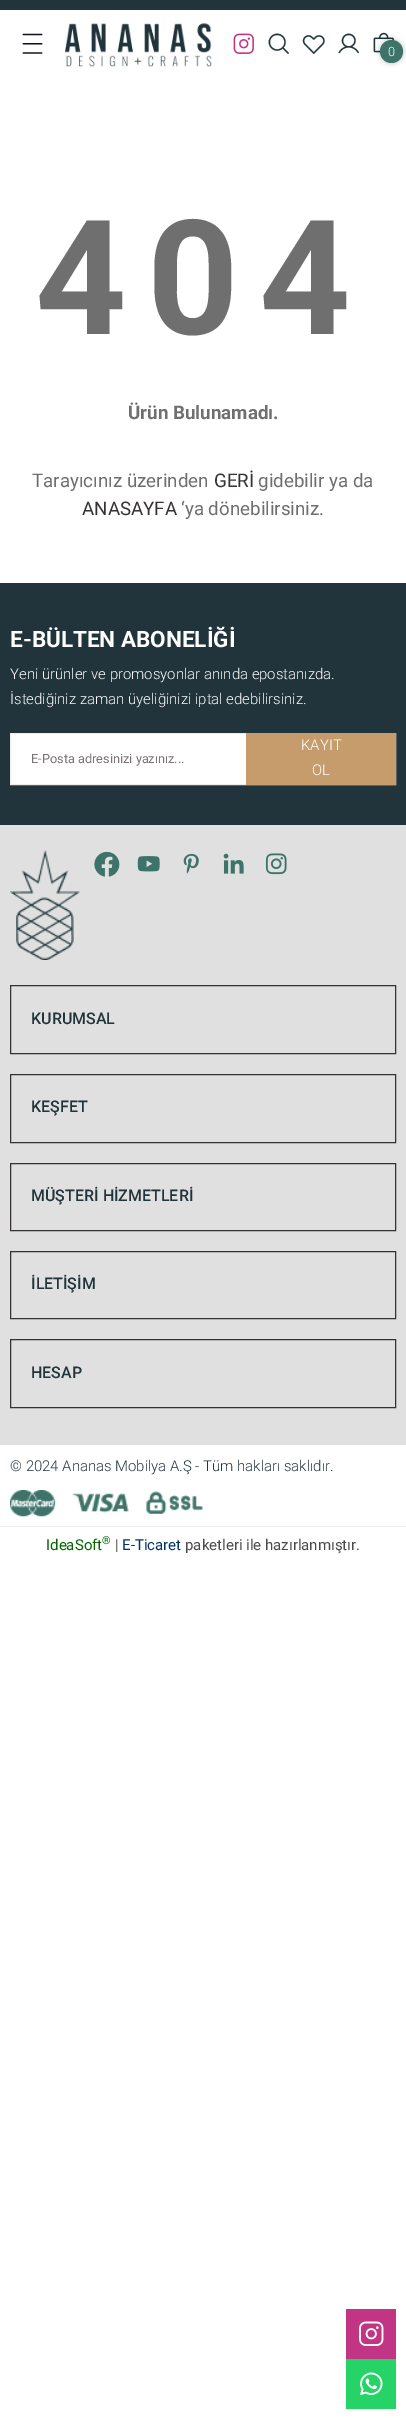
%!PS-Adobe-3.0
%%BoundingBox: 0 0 406 2418
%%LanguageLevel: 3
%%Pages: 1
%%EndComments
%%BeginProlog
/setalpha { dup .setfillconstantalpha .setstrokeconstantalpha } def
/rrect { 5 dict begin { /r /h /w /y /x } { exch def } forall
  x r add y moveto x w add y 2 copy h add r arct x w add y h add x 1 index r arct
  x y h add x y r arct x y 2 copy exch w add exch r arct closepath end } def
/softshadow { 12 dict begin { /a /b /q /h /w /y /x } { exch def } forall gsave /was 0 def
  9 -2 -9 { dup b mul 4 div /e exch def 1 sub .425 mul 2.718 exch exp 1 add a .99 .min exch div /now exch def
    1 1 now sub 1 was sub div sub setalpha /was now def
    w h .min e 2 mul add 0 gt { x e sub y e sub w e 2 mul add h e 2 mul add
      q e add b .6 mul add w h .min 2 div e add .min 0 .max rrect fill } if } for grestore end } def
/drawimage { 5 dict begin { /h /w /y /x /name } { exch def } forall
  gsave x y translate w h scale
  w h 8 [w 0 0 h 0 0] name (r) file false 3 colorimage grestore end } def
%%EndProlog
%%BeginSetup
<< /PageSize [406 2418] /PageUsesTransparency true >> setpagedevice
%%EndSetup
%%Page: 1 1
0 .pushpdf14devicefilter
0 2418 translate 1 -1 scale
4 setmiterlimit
1 setgray
0 0 406 2418 rectfill
0.129 0.204 0.231 setrgbcolor
0 0 406 10 rectfill
(images/1.raw) 22 33 21 21 drawimage
(images/2.raw) 65 23 147 44 drawimage
(images/3.raw) 233 33 21 21 drawimage
(images/4.raw) 268 33 21 21 drawimage
(images/5.raw) 302 35 23 19 drawimage
(images/6.raw) 338 33 21 21 drawimage
(images/7.raw) 373 32 21 21 drawimage
0 setgray
380 40 23 23 11.5 2.5 0.25 softshadow
0.239 0.451 0.408 setrgbcolor
newpath 391.5 51.5 11.5 0 360 arc closepath fill
0.129 0.204 0.231 setrgbcolor
0 583 406 242 rectfill
1 setgray
11 734 235 50 rectfill
0.929 setgray
10.5 733.5 385 51 rectstroke
0.776 0.612 0.427 setrgbcolor
246 733 150 52 rectfill
0.875 0.878 0.875 setrgbcolor
0 825 406 620 rectfill
(images/8.raw) 10 850 70 110 drawimage
(images/9.raw) 94 851 26 26 drawimage
(images/10.raw) 137 856 23 16 drawimage
(images/11.raw) 183 853 16 21 drawimage
(images/12.raw) 223 853 21 21 drawimage
(images/13.raw) 265 853 22 22 drawimage
0.212 0.196 0.196 setrgbcolor
10.5 985.5 385 68 rectstroke
10.5 1074.5 385 68 rectstroke
10.5 1163.5 385 67 rectstroke
10.5 1251.5 385 67 rectstroke
10.5 1339.5 385 68 rectstroke
0.929 setgray
0 1526 406 1 rectfill
(images/14.raw) 10 1490 193 27 drawimage
0.757 0.208 0.518 setrgbcolor
346 2309 50 50 rectfill
(images/15.raw) 359 2321 25 25 drawimage
0.145 0.827 0.4 setrgbcolor
346 2359 50 50 rectfill
(images/16.raw) 360 2372 23 24 drawimage
/Roboto-Light [12.75 0 0 -12.75 0 0] selectfont
1 setgray
388 56 moveto (0) show
/Roboto-Bold [160 0 0 -160 0 0] selectfont
0.435 setgray
35 334 moveto 20 0 (404) ashow
/Roboto-Bold [18.75 0 0 -18.75 0 0] selectfont
128 419 moveto (Ürün Bulunamadı.) show
/Roboto-Regular [18.75 0 0 -18.75 0 0] selectfont
32 487 moveto (Tarayıcınız üzerinden) show
0.212 0.196 0.196 setrgbcolor
214 487 moveto (GERİ) show
0.435 setgray
258 487 moveto (gidebilir ya da) show
0.212 0.196 0.196 setrgbcolor
82 515 moveto (ANASAYFA) show
0.435 setgray
181 515 moveto (‘ya dönebilirsiniz.) show
/Roboto-Bold [22.5 0 0 -22.5 0 0] selectfont
1 setgray
10 647 moveto (E-BÜLTEN ABONELİĞİ) show
/Roboto-Light [14.9 0 0 -14.9 0 0] selectfont
10 679 moveto (Yeni ürünler ve promosyonlar anında epostanızda.) show
10 704 moveto (İstediğiniz zaman üyeliğinizi iptal edebilirsiniz.) show
/Roboto-Regular [12.75 0 0 -12.75 0 0] selectfont
0.478 0.455 0.455 setrgbcolor
31 763 moveto (E-Posta adresinizi yazınız...) show
/Roboto-Light [14.9 0 0 -14.9 0 0] selectfont
1 setgray
301 750 moveto (KAYIT) show
312 775 moveto (OL) show
/Roboto-Medium [16 0 0 -16 0 0] selectfont
0.129 0.204 0.231 setrgbcolor
31 1024 moveto (KURUMSAL) show
31 1112 moveto (KEŞFET) show
31 1201 moveto (MÜŞTERİ HİZMETLERİ) show
31 1289 moveto (İLETİŞİM) show
31 1378 moveto (HESAP) show
/Roboto-Light [14.9 0 0 -14.9 0 0] selectfont
10 1471 moveto (© 2024 Ananas Mobilya A.Ş - Tüm hakları saklıdır.) show
/Roboto-Regular [15 0 0 -15 0 0] selectfont
0 0.4 0 setrgbcolor
46 1550 moveto (IdeaSoft) show
/Roboto-Regular [11 0 0 -11 0 0] selectfont
102 1544 moveto (®) show
/Roboto-Regular [15 0 0 -15 0 0] selectfont
0.294 setgray
115 1550 moveto (|) show
0 0.2 0.4 setrgbcolor
122 1550 moveto (E-Ticaret) show
0.294 setgray
185 1550 moveto (paketleri ile hazırlanmıştır.) show
.poppdf14devicefilter showpage
%%EOF
